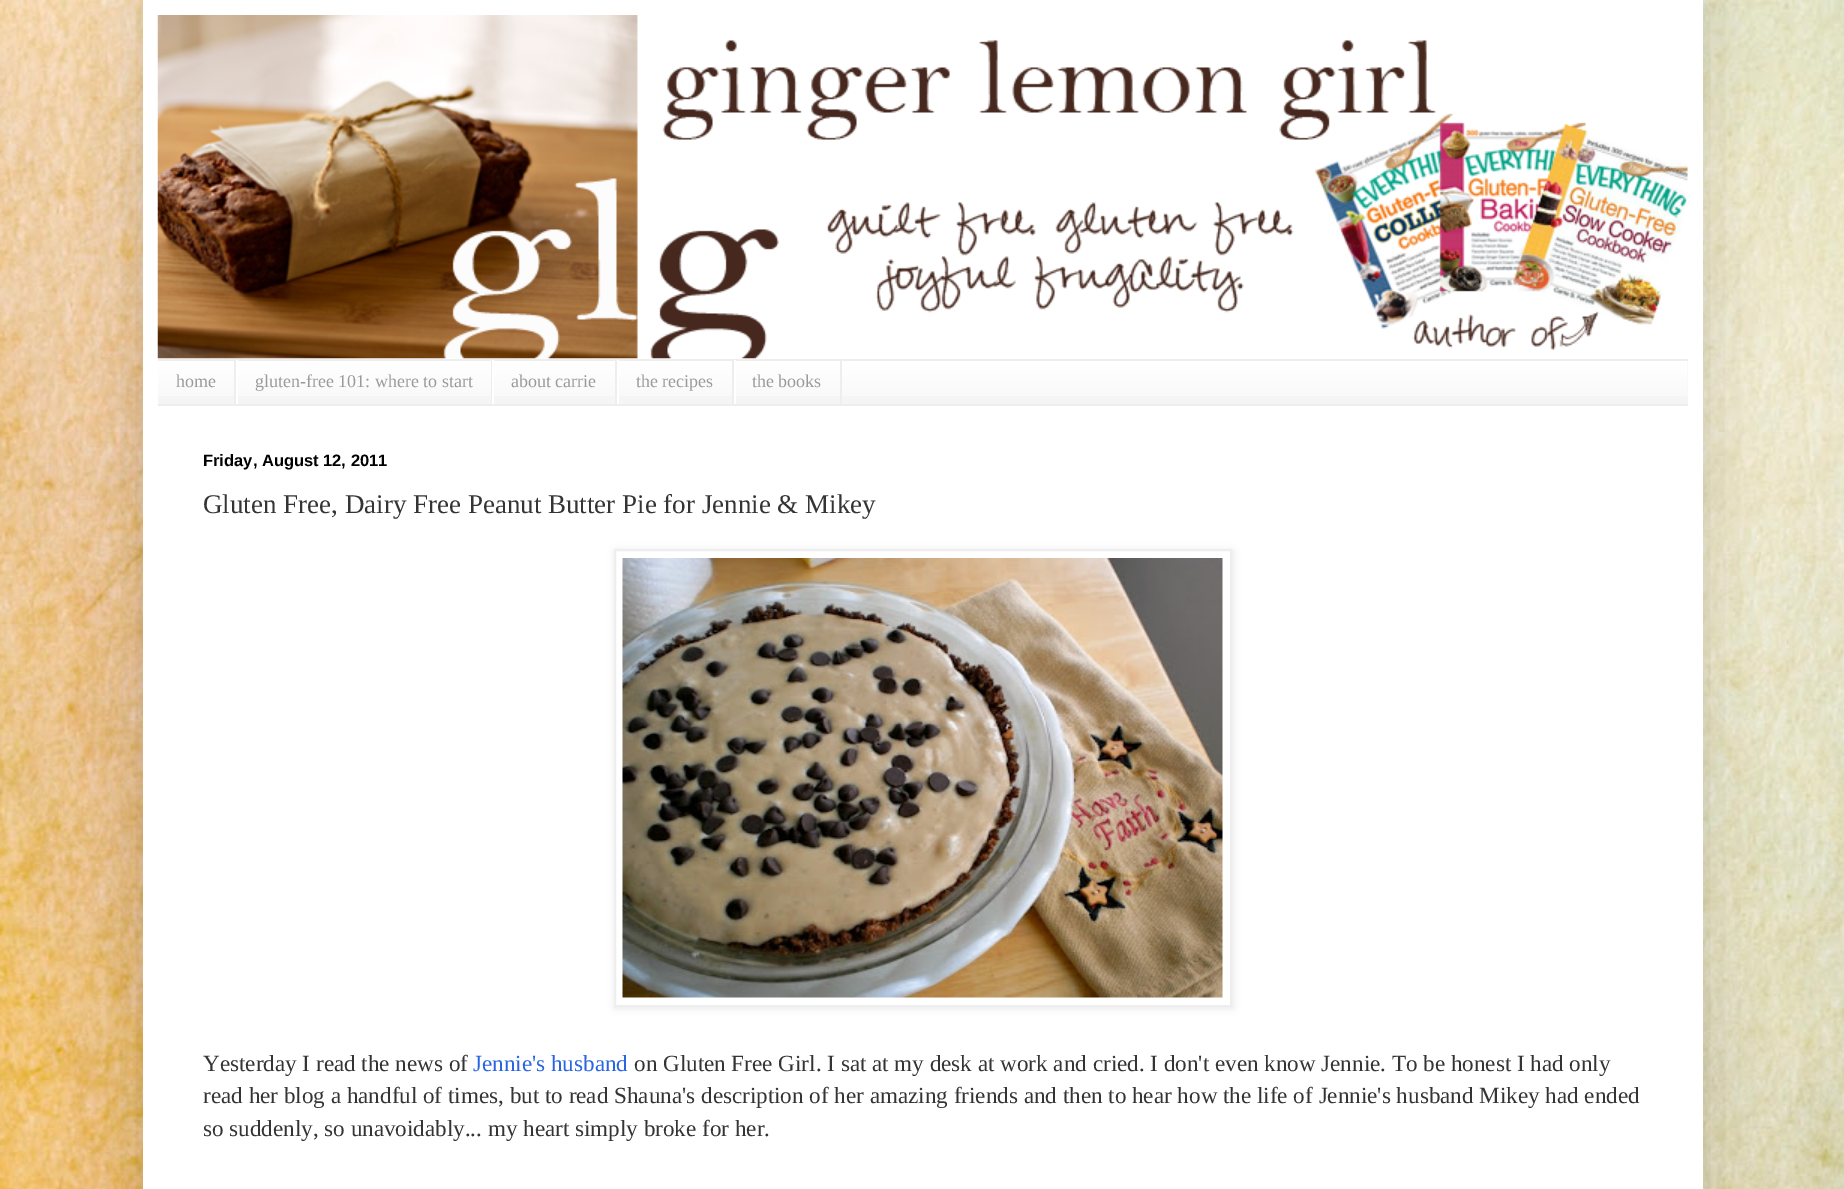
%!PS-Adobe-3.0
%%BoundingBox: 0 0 1844 1189
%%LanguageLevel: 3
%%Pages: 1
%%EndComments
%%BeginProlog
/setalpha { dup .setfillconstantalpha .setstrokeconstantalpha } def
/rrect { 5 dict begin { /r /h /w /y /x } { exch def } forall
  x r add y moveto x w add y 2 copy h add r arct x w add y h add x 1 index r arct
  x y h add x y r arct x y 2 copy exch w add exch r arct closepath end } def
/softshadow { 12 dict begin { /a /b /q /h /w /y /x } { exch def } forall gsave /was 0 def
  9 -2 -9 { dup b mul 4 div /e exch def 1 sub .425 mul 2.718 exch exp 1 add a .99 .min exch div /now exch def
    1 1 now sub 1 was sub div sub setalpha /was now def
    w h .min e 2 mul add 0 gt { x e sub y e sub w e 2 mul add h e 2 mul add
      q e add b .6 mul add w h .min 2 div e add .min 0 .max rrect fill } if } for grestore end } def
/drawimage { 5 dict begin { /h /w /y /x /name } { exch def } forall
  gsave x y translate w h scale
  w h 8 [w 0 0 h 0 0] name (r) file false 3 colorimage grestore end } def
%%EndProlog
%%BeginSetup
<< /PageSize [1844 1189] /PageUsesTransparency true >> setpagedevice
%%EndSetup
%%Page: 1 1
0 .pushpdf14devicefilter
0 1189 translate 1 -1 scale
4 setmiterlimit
1 setgray
0 0 1844 1189 rectfill
(images/1.raw) 0 0 1844 1189 drawimage
0 setgray
143 0 1560 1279 0 30 0.15 softshadow
1 setgray
143 0 1560 1189 rectfill
(images/2.raw) 157 15 1531 344 drawimage
0.961 setgray
158 361 1530 43 rectfill
(images/3.raw) 158 361 1530 35 drawimage
0.933 setgray
158 359 1530 2 rectfill
158 404 1530 2 rectfill
234 360 2 44 rectfill
491 360 1 44 rectfill
1 setgray
236 360 2 44 rectfill
0.933 setgray
615 360 2 44 rectfill
1 setgray
492 360 2 44 rectfill
0.933 setgray
732 360 2 44 rectfill
1 setgray
617 360 2 44 rectfill
0.933 setgray
840 360 2 44 rectfill
1 setgray
734 360 2 44 rectfill
0 setgray
615 551 618 457 0 4 0.1 softshadow
1 setgray
newpath 615 550 moveto 1231 550 lineto 1231 1006 lineto 615 1006 lineto closepath gsave fill grestore
0.933 setgray
2 setlinewidth
stroke
(images/4.raw) 622 558 601 440 drawimage
/LiberationSerif-Regular [18 0 0 -18 0 0] selectfont
0.604 setgray
176 387 moveto (home) show
255 387 moveto (gluten-free 101: where to start) show
511 387 moveto (about carrie) show
636 387 moveto (the recipes) show
752 387 moveto (the books) show
/LiberationSans-Bold [16.5 0 0 -16.5 0 0] selectfont
0 setgray
203 466 moveto (Friday, August 12, 2011) show
/LiberationSerif-Regular [27 0 0 -27 0 0] selectfont
0.204 setgray
203 513 moveto (Gluten Free, Dairy Free Peanut Butter Pie for Jennie & Mikey) show
/LiberationSerif-Regular [23.1 0 0 -23.1 0 0] selectfont
203 1071 moveto (Yesterday I read the news of) show
0.161 0.392 0.882 setrgbcolor
473 1071 moveto (Jennie's husband) show
0.204 setgray
634 1071 moveto (on Gluten Free Girl. I sat at my desk at work and cried. I don't even know Jennie. To be honest I had only) show
203 1103 moveto (read her blog a handful of times, but to read Shauna's description of her amazing friends and then to hear how the life of Jennie's husband Mikey had ended) show
203 1136 moveto (so suddenly, so unavoidably... my heart simply broke for her.) show
.poppdf14devicefilter showpage
%%EOF
